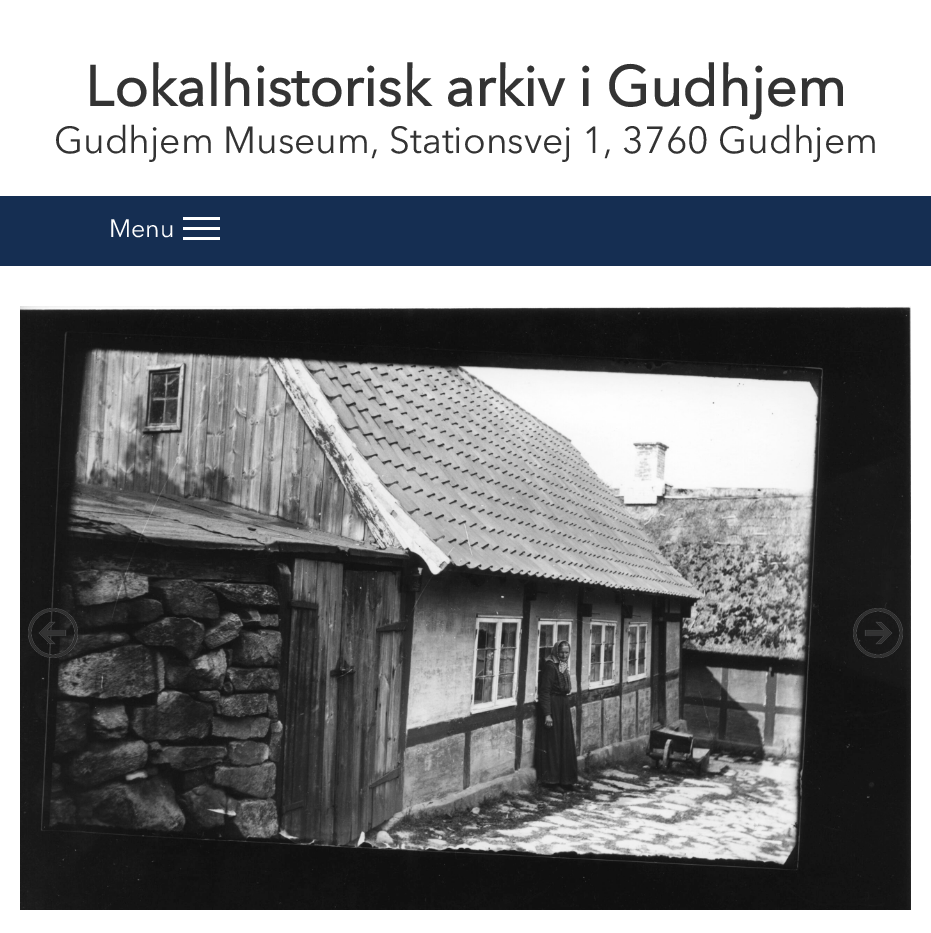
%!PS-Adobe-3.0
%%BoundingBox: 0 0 931 933
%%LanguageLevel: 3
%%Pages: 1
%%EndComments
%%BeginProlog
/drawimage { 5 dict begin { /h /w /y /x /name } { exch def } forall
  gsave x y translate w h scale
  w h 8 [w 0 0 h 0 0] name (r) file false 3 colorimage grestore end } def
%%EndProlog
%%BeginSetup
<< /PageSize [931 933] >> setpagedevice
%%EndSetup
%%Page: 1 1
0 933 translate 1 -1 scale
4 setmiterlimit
1 setgray
0 0 931 933 rectfill
0.082 0.18 0.322 setrgbcolor
0 196 931 70 rectfill
1 setgray
183 227 37 3 rectfill
183 217 37 3 rectfill
183 237 37 3 rectfill
(images/1.raw) 20 306 891 604 drawimage
(images/2.raw) 28 608 50 50 drawimage
(images/3.raw) 853 608 50 50 drawimage
/AvenirNext-Bold [55.9 0 0 -55.9 0 0] selectfont
0.2 setgray
85 106 moveto (Lokalhistorisk arkiv i Gudhjem) show
/AvenirNext-Regular [37.25 0 0 -37.25 0 0] selectfont
54 153 moveto (Gudhjem Museum, Stationsvej 1, 3760 Gudhjem) show
/AvenirNext-Regular [25 0 0 -25 0 0] selectfont
1 setgray
109 237 moveto (Menu) show
showpage
%%EOF
